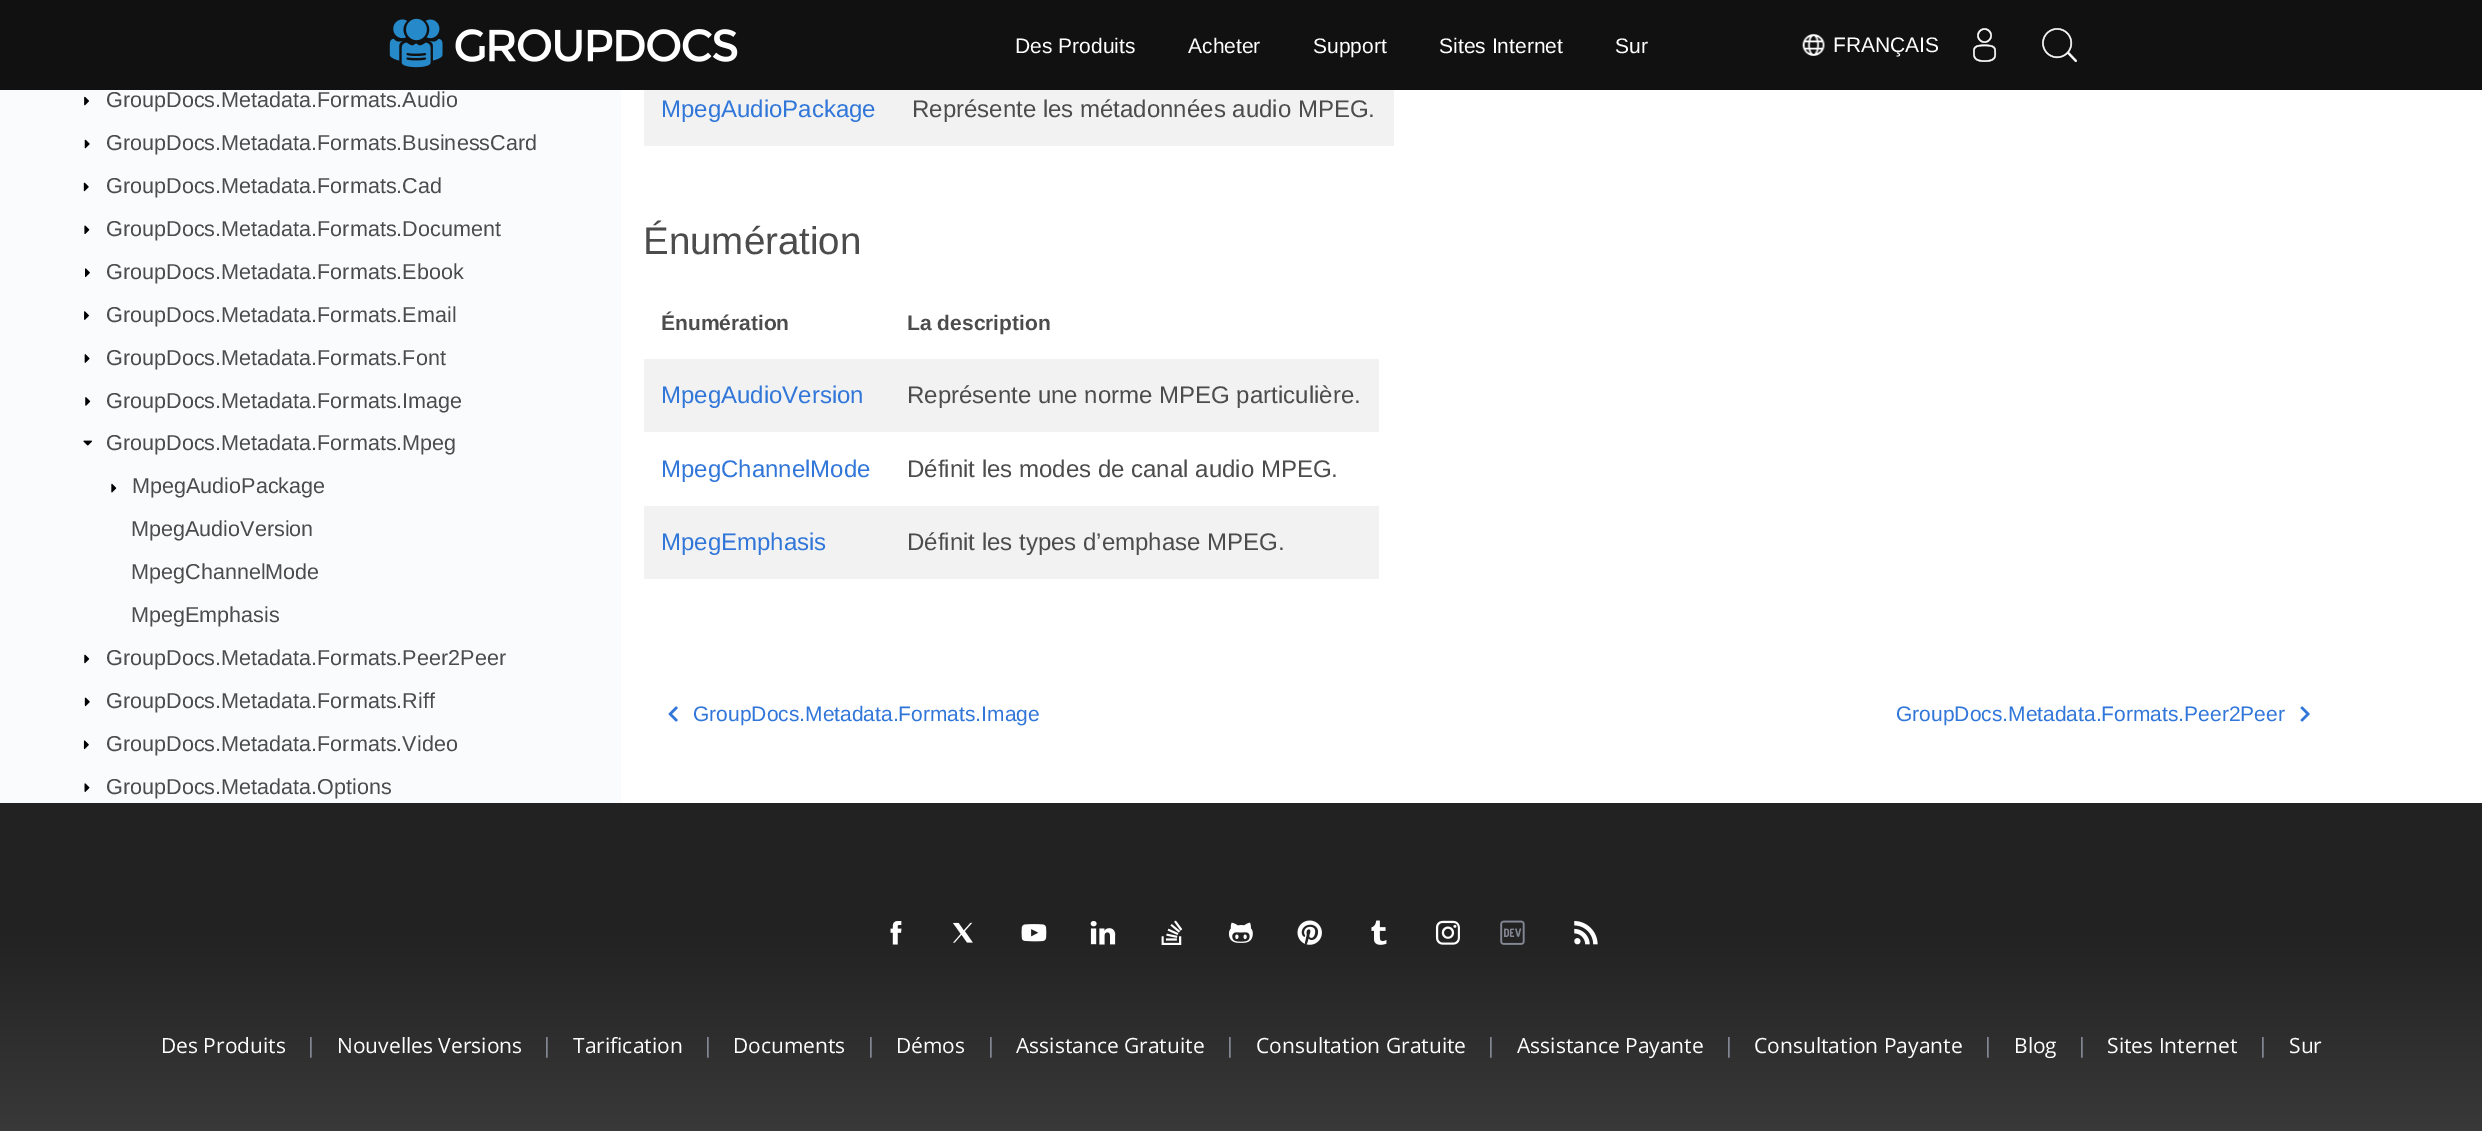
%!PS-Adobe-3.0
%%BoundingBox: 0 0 2482 1131
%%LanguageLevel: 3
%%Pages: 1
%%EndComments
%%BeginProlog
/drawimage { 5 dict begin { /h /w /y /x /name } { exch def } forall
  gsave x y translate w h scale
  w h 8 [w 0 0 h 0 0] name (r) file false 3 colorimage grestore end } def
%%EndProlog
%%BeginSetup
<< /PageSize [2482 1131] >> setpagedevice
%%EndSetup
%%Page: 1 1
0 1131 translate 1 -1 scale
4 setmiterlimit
1 setgray
0 0 2482 1131 rectfill
0.067 setgray
0 0 2482 90 rectfill
(images/1.raw) 389 18 349 50 drawimage
(images/2.raw) 1802 34 23 22 drawimage
(images/3.raw) 1973 28 24 34 drawimage
(images/4.raw) 2042 28 35 35 drawimage
0.98 0.984 0.988 setrgbcolor
0 90 621 713 rectfill
(images/5.raw) 84 96 5 10 drawimage
(images/6.raw) 84 139 6 10 drawimage
(images/7.raw) 83 182 6 10 drawimage
(images/8.raw) 84 225 6 9 drawimage
(images/9.raw) 85 268 5 9 drawimage
(images/10.raw) 84 311 5 9 drawimage
(images/11.raw) 84 354 6 9 drawimage
(images/12.raw) 85 397 6 9 drawimage
(images/13.raw) 83 440 10 6 drawimage
(images/14.raw) 111 483 6 10 drawimage
(images/15.raw) 84 654 6 10 drawimage
(images/16.raw) 84 697 6 10 drawimage
(images/17.raw) 83 740 6 10 drawimage
(images/18.raw) 84 783 6 9 drawimage
0.949 setgray
644 90 750 56 rectfill
644 359 735 73 rectfill
644 506 735 73 rectfill
(images/19.raw) 668 706 10 16 drawimage
(images/20.raw) 2300 706 10 16 drawimage
gsave newpath 0 803 moveto 2482 803 lineto 2482 1131 lineto 0 1131 lineto closepath clip newpath
<< /ShadingType 2 /ColorSpace /DeviceRGB /Coords [1241 802 1241 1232] /Extend [true true] /Function << /FunctionType 3 /Domain [0 1] /Functions [<< /FunctionType 2 /Domain [0 1] /C0 [0.133 0.133 0.133] /C1 [0.133 0.133 0.133] /N 1 >> << /FunctionType 2 /Domain [0 1] /C0 [0.133 0.133 0.133] /C1 [0.267 0.267 0.267] /N 1 >>] /Bounds [0.3] /Encode [0 1 0 1] >> >> shfill grestore
(images/21.raw) 890 921 12 24 drawimage
(images/22.raw) 953 922 20 21 drawimage
(images/23.raw) 1021 924 26 18 drawimage
(images/24.raw) 1090 921 26 24 drawimage
(images/25.raw) 1161 920 22 25 drawimage
(images/26.raw) 1228 922 25 21 drawimage
(images/27.raw) 1297 920 25 25 drawimage
(images/28.raw) 1371 920 16 25 drawimage
(images/29.raw) 1435 920 25 25 drawimage
(images/30.raw) 1500 920 25 25 drawimage
(images/31.raw) 1574 921 24 24 drawimage
/LiberationSans-Regular [21 0 0 -21 0 0] selectfont
1 setgray
1015 53 moveto (Des Produits) show
1188 53 moveto (Acheter) show
1313 53 moveto (Support) show
1439 53 moveto (Sites Internet) show
1615 53 moveto (Sur) show
1833 52 moveto (FRANÇAIS) show
/LiberationSans-Regular [21.6 0 0 -21.6 0 0] selectfont
0.298 setgray
106 107 moveto (GroupDocs.Metadata.Formats.Audio) show
106 150 moveto (GroupDocs.Metadata.Formats.BusinessCard) show
106 193 moveto (GroupDocs.Metadata.Formats.Cad) show
106 236 moveto (GroupDocs.Metadata.Formats.Document) show
106 279 moveto (GroupDocs.Metadata.Formats.Ebook) show
106 322 moveto (GroupDocs.Metadata.Formats.Email) show
106 365 moveto (GroupDocs.Metadata.Formats.Font) show
106 408 moveto (GroupDocs.Metadata.Formats.Image) show
106 450 moveto (GroupDocs.Metadata.Formats.Mpeg) show
132 493 moveto (MpegAudioPackage) show
131 536 moveto (MpegAudioVersion) show
131 579 moveto (MpegChannelMode) show
131 622 moveto (MpegEmphasis) show
106 665 moveto (GroupDocs.Metadata.Formats.Peer2Peer) show
106 708 moveto (GroupDocs.Metadata.Formats.Riff) show
106 751 moveto (GroupDocs.Metadata.Formats.Video) show
106 794 moveto (GroupDocs.Metadata.Options) show
/LiberationSans-Regular [24 0 0 -24 0 0] selectfont
0.192 0.463 0.851 setrgbcolor
661 117 moveto (MpegAudioPackage) show
0.298 setgray
912 117 moveto (Représente les métadonnées audio MPEG.) show
/LiberationSans-Regular [38.5 0 0 -38.5 0 0] selectfont
643 254 moveto (Énumération) show
/LiberationSans-Bold [21 0 0 -21 0 0] selectfont
661 330 moveto (Énumération) show
907 330 moveto (La description) show
/LiberationSans-Regular [24 0 0 -24 0 0] selectfont
0.192 0.463 0.851 setrgbcolor
661 403 moveto (MpegAudioVersion) show
0.298 setgray
907 403 moveto (Représente une norme MPEG particulière.) show
0.192 0.463 0.851 setrgbcolor
661 477 moveto (MpegChannelMode) show
0.298 setgray
907 477 moveto (Définit les modes de canal audio MPEG.) show
0.192 0.463 0.851 setrgbcolor
661 550 moveto (MpegEmphasis) show
0.298 setgray
907 550 moveto (Définit les types d’emphase MPEG.) show
/LiberationSans-Regular [21 0 0 -21 0 0] selectfont
0.192 0.463 0.851 setrgbcolor
693 721 moveto (GroupDocs.Metadata.Formats.Image) show
1896 721 moveto (GroupDocs.Metadata.Formats.Peer2Peer) show
/OpenSans-Regular [21 0 0 -21 0 0] selectfont
1 setgray
161 1053 moveto (Des Produits) show
/LiberationSans-Regular [22 0 0 -22 0 0] selectfont
0.506 0.525 0.573 setrgbcolor
308 1053 moveto (|) show
/OpenSans-Regular [21 0 0 -21 0 0] selectfont
1 setgray
337 1053 moveto (Nouvelles Versions) show
/LiberationSans-Regular [22 0 0 -22 0 0] selectfont
0.506 0.525 0.573 setrgbcolor
544 1053 moveto (|) show
/OpenSans-Regular [21 0 0 -21 0 0] selectfont
1 setgray
573 1053 moveto (Tarification) show
/LiberationSans-Regular [22 0 0 -22 0 0] selectfont
0.506 0.525 0.573 setrgbcolor
705 1053 moveto (|) show
/OpenSans-Regular [21 0 0 -21 0 0] selectfont
1 setgray
733 1053 moveto (Documents) show
/LiberationSans-Regular [22 0 0 -22 0 0] selectfont
0.506 0.525 0.573 setrgbcolor
868 1053 moveto (|) show
/OpenSans-Regular [21 0 0 -21 0 0] selectfont
1 setgray
896 1053 moveto (Démos) show
/LiberationSans-Regular [22 0 0 -22 0 0] selectfont
0.506 0.525 0.573 setrgbcolor
988 1053 moveto (|) show
/OpenSans-Regular [21 0 0 -21 0 0] selectfont
1 setgray
1016 1053 moveto (Assistance Gratuite) show
/LiberationSans-Regular [22 0 0 -22 0 0] selectfont
0.506 0.525 0.573 setrgbcolor
1227 1053 moveto (|) show
/OpenSans-Regular [21 0 0 -21 0 0] selectfont
1 setgray
1256 1053 moveto (Consultation Gratuite) show
/LiberationSans-Regular [22 0 0 -22 0 0] selectfont
0.506 0.525 0.573 setrgbcolor
1488 1053 moveto (|) show
/OpenSans-Regular [21 0 0 -21 0 0] selectfont
1 setgray
1517 1053 moveto (Assistance Payante) show
/LiberationSans-Regular [22 0 0 -22 0 0] selectfont
0.506 0.525 0.573 setrgbcolor
1726 1053 moveto (|) show
/OpenSans-Regular [21 0 0 -21 0 0] selectfont
1 setgray
1754 1053 moveto (Consultation Payante) show
/LiberationSans-Regular [22 0 0 -22 0 0] selectfont
0.506 0.525 0.573 setrgbcolor
1985 1053 moveto (|) show
/OpenSans-Regular [21 0 0 -21 0 0] selectfont
1 setgray
2014 1053 moveto (Blog) show
/LiberationSans-Regular [22 0 0 -22 0 0] selectfont
0.506 0.525 0.573 setrgbcolor
2079 1053 moveto (|) show
/OpenSans-Regular [21 0 0 -21 0 0] selectfont
1 setgray
2107 1053 moveto (Sites Internet) show
/LiberationSans-Regular [22 0 0 -22 0 0] selectfont
0.506 0.525 0.573 setrgbcolor
2260 1053 moveto (|) show
/OpenSans-Regular [21 0 0 -21 0 0] selectfont
1 setgray
2289 1053 moveto (Sur) show
showpage
%%EOF
